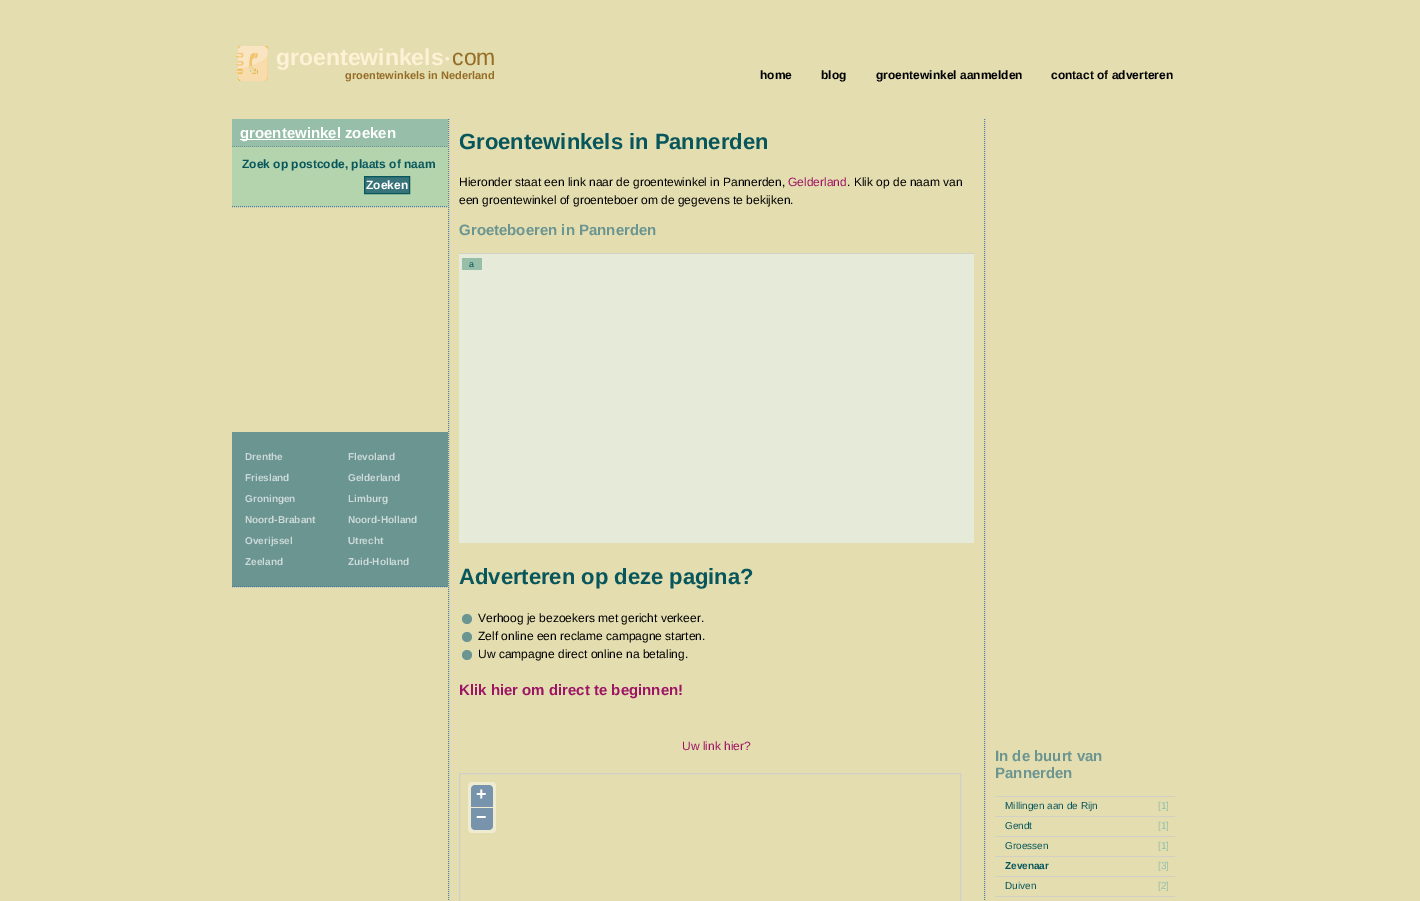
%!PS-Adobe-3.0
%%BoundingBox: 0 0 1420 901
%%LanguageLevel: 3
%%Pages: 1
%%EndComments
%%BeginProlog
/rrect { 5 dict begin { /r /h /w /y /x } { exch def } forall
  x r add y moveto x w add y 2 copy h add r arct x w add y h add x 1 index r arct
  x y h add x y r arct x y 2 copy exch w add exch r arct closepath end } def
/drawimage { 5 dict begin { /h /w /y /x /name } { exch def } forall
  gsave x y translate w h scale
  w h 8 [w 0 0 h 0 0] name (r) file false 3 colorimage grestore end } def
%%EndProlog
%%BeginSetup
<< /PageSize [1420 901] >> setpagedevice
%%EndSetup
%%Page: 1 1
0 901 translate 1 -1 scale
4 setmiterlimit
0.89 0.867 0.69 setrgbcolor
0 0 1420 901 rectfill
(images/1.raw) 236 46 32 35 drawimage
0.592 0.745 0.663 setrgbcolor
232 119 216 28 rectfill
0.42 0.584 0.569 setrgbcolor
[1 1] 0 setdash
newpath 232 146.5 moveto 448 146.5 lineto stroke
1 setgray
240 139 100 1 rectfill
0.706 0.831 0.678 setrgbcolor
232 147 216 60 rectfill
0.306 0.482 0.647 setrgbcolor
newpath 232 206.5 moveto 448 206.5 lineto stroke
0.224 0.455 0.478 setrgbcolor
newpath 364.5 176.5 moveto 409.5 176.5 lineto 409.5 193.5 lineto 364.5 193.5 lineto closepath gsave fill grestore
0.027 0.337 0.357 setrgbcolor
[] 0 setdash
stroke
0.42 0.584 0.569 setrgbcolor
232 432 216 155 rectfill
0.306 0.482 0.647 setrgbcolor
[1 1] 0 setdash
newpath 232 586.5 moveto 448 586.5 lineto stroke
newpath 984.5 119 moveto 984.5 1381 lineto stroke
newpath 448.5 119 moveto 448.5 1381 lineto stroke
0.898 0.922 0.847 setrgbcolor
459 254 515 289 rectfill
0.824 0.816 0.773 setrgbcolor
459 253 515 1 rectfill
0.592 0.745 0.663 setrgbcolor
462 258 20 12 rectfill
0.42 0.584 0.569 setrgbcolor
newpath 467 619 5 0 360 arc closepath fill
newpath 467 637 5 0 360 arc closepath fill
newpath 467 655 5 0 360 arc closepath fill
0.824 0.816 0.773 setrgbcolor
[] 0 setdash
459.5 773.5 501 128 rectstroke
0.933 0.922 0.816 setrgbcolor
468 782 28 51 4 rrect fill
0.467 0.58 0.675 setrgbcolor
newpath 475 785 moveto 489 785 lineto 491 785 493 787 493 789 curveto 493 807 lineto 471 807 lineto 471 789 lineto 471 787 473 785 475 785 curveto closepath fill
newpath 471 808 moveto 493 808 lineto 493 826 lineto 493 828 491 830 489 830 curveto 475 830 lineto 473 830 471 828 471 826 curveto closepath fill
0.824 0.816 0.773 setrgbcolor
995 796 180 1 rectfill
995 816 180 1 rectfill
995 836 180 1 rectfill
995 856 180 1 rectfill
995 876 180 1 rectfill
995 896 180 1 rectfill
/LiberationSans-Bold [23 0 0 -23 0 0] selectfont
1 0.945 0.835 setrgbcolor
276 65 moveto (groentewinkels) show
/LiberationSans-Bold [13 0 0 -13 0 0] selectfont
445 63 moveto (•) show
/LiberationSans-Regular [23 0 0 -23 0 0] selectfont
0.584 0.427 0.153 setrgbcolor
452 65 moveto (com) show
/LiberationSans-Bold [11 0 0 -11 0 0] selectfont
345 79 moveto (groentewinkels in Nederland) show
/LiberationSans-Bold [12 0 0 -12 0 0] selectfont
0 setgray
760 79 moveto (home) show
821 79 moveto (blog) show
876 79 moveto (groentewinkel aanmelden) show
1051 79 moveto (contact of adverteren) show
/LiberationSans-Bold [15 0 0 -15 0 0] selectfont
1 setgray
240 138 moveto (groentewinkel zoeken) show
/LiberationSans-Bold [12 0 0 -12 0 0] selectfont
0.027 0.337 0.357 setrgbcolor
242 168 moveto (Zoek op postcode, plaats of naam) show
1 setgray
366 189 moveto (Zoeken) show
/LiberationSans-Bold [10 0 0 -10 0 0] selectfont
0.8 0.855 0.851 setrgbcolor
245 460 moveto (Drenthe) show
348 460 moveto (Flevoland) show
245 481 moveto (Friesland) show
348 481 moveto (Gelderland) show
245 502 moveto (Groningen) show
348 502 moveto (Limburg) show
245 523 moveto (Noord-Brabant) show
348 523 moveto (Noord-Holland) show
245 544 moveto (Overijssel) show
348 544 moveto (Utrecht) show
245 565 moveto (Zeeland) show
348 565 moveto (Zuid-Holland) show
/LiberationSans-Bold [22 0 0 -22 0 0] selectfont
0.027 0.337 0.357 setrgbcolor
459 149 moveto (Groentewinkels in Pannerden) show
/LiberationSans-Regular [12 0 0 -12 0 0] selectfont
0 setgray
459 186 moveto (Hieronder staat een link naar de groentewinkel in Pannerden,) show
0.62 0.078 0.396 setrgbcolor
788 186 moveto (Gelderland) show
0 setgray
847 186 moveto (. Klik op de naam van) show
459 204 moveto (een groentewinkel of groenteboer om de gegevens te bekijken.) show
/LiberationSans-Bold [15 0 0 -15 0 0] selectfont
0.42 0.584 0.569 setrgbcolor
459 235 moveto (Groeteboeren in Pannerden) show
/LiberationSans-Regular [9 0 0 -9 0 0] selectfont
0.027 0.337 0.357 setrgbcolor
469 267 moveto (a) show
/LiberationSans-Bold [22 0 0 -22 0 0] selectfont
459 584 moveto (Adverteren op deze pagina?) show
/LiberationSans-Regular [12 0 0 -12 0 0] selectfont
0 setgray
478 622 moveto (Verhoog je bezoekers met gericht verkeer.) show
478 640 moveto (Zelf online een reclame campagne starten.) show
478 658 moveto (Uw campagne direct online na betaling.) show
/LiberationSans-Bold [15 0 0 -15 0 0] selectfont
0.62 0.078 0.396 setrgbcolor
459 695 moveto (Klik hier om direct te beginnen!) show
/LiberationSans-Regular [12 0 0 -12 0 0] selectfont
682 750 moveto (Uw link hier?) show
/LiberationSans-Bold [18 0 0 -18 0 0] selectfont
1 setgray
476 800 moveto (+) show
476 823 moveto (−) show
/LiberationSans-Bold [15 0 0 -15 0 0] selectfont
0.42 0.584 0.569 setrgbcolor
995 761 moveto (In de buurt van) show
995 778 moveto (Pannerden) show
/LiberationSans-Regular [10 0 0 -10 0 0] selectfont
0.027 0.337 0.357 setrgbcolor
1005 809 moveto (Millingen aan de Rijn) show
0.592 0.745 0.663 setrgbcolor
1158 809 moveto ([1]) show
0.027 0.337 0.357 setrgbcolor
1005 829 moveto (Gendt) show
0.592 0.745 0.663 setrgbcolor
1158 829 moveto ([1]) show
0.027 0.337 0.357 setrgbcolor
1005 849 moveto (Groessen) show
0.592 0.745 0.663 setrgbcolor
1158 849 moveto ([1]) show
/LiberationSans-Bold [10 0 0 -10 0 0] selectfont
0.027 0.337 0.357 setrgbcolor
1005 869 moveto (Zevenaar) show
/LiberationSans-Regular [10 0 0 -10 0 0] selectfont
0.592 0.745 0.663 setrgbcolor
1158 869 moveto ([3]) show
0.027 0.337 0.357 setrgbcolor
1005 889 moveto (Duiven) show
0.592 0.745 0.663 setrgbcolor
1158 889 moveto ([2]) show
showpage
%%EOF
